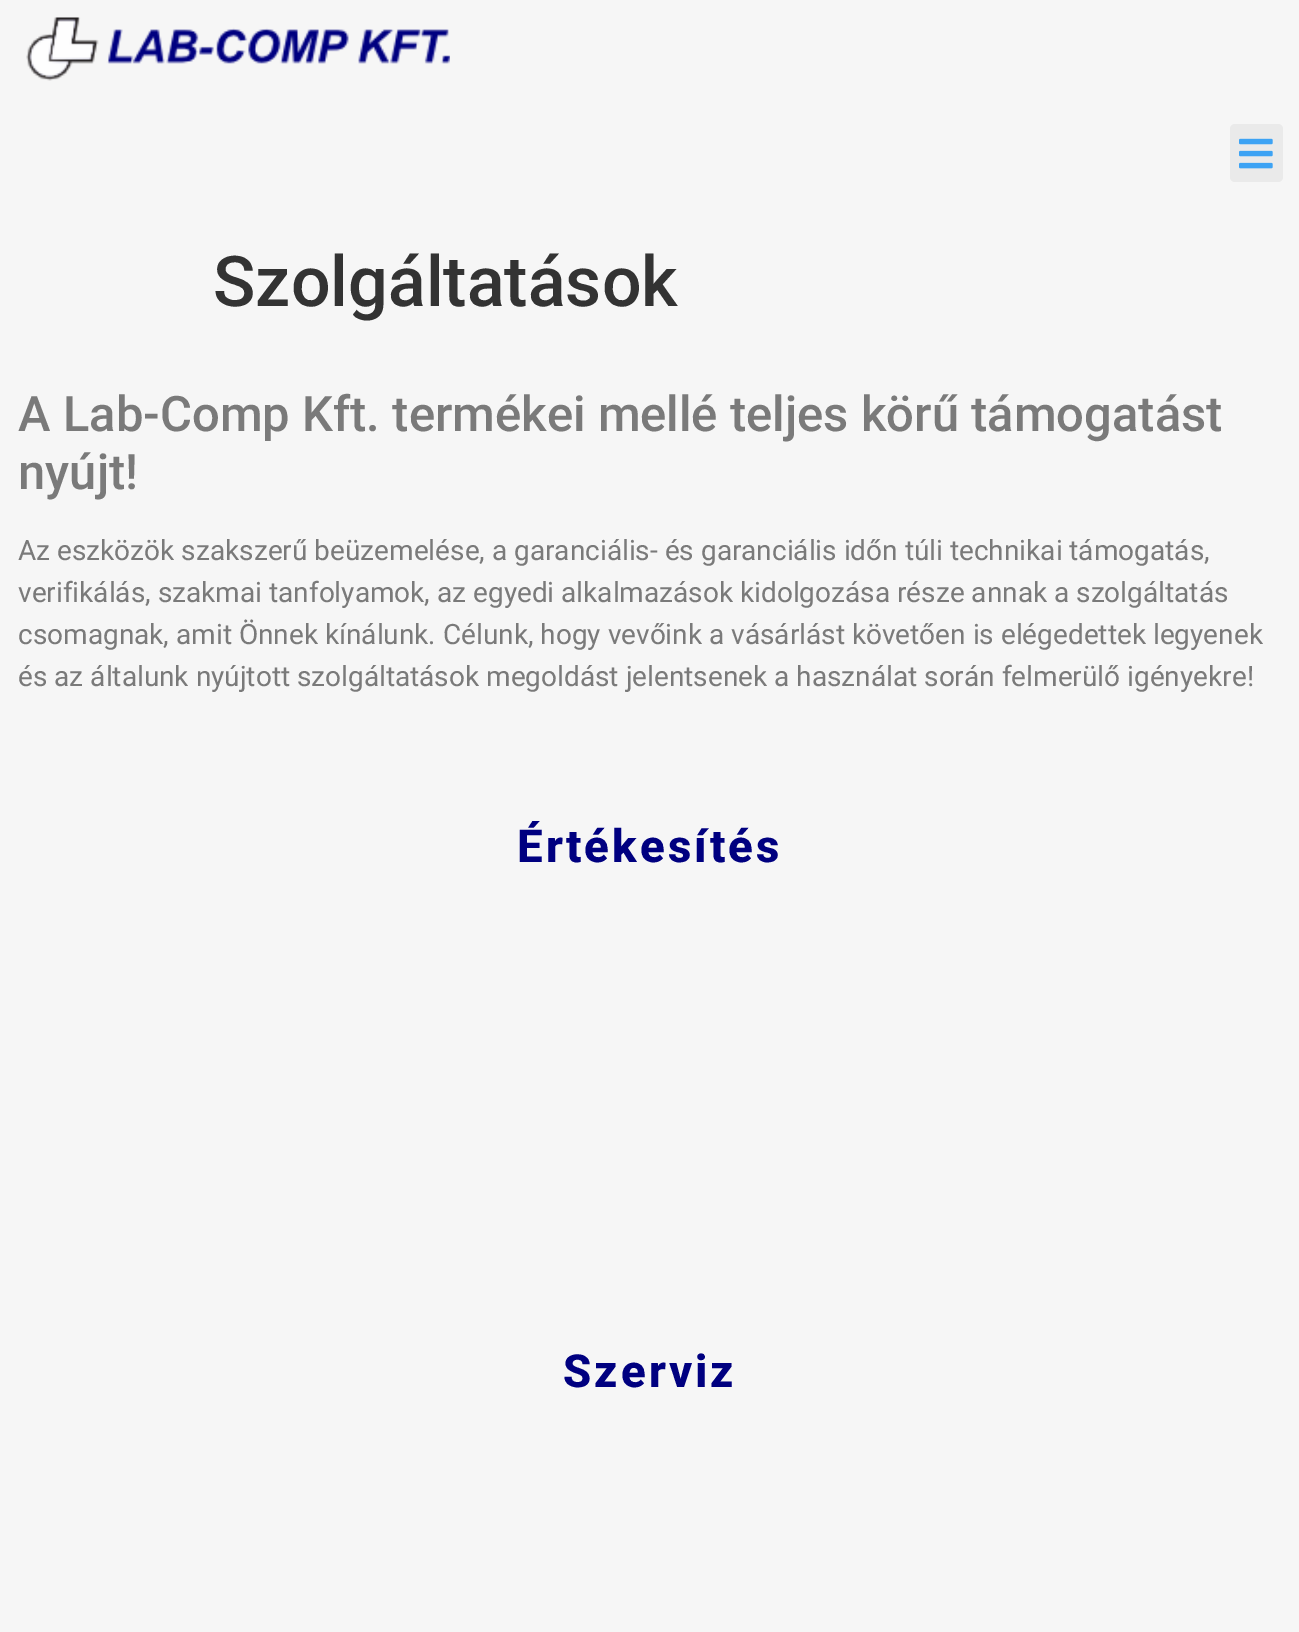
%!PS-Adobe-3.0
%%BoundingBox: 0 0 1299 1632
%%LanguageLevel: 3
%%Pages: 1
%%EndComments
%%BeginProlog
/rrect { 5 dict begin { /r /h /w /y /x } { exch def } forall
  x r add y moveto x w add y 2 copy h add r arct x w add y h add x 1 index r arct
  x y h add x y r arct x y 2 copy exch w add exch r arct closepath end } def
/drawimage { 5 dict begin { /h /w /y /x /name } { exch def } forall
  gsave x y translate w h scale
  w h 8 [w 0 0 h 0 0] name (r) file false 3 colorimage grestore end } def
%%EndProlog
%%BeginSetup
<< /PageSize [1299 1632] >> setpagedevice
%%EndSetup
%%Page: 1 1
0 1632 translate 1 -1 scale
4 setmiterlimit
0.965 setgray
0 0 1299 1632 rectfill
(images/1.raw) 26 17 424 64 drawimage
0.918 setgray
1230 124 53 58 5 rrect fill
(images/2.raw) 1239 138 34 31 drawimage
/Roboto-Medium [70 0 0 -70 0 0] selectfont
0.2 setgray
213 306 moveto (Szolgáltatások) show
/Roboto-Medium [49 0 0 -49 0 0] selectfont
0.478 setgray
18 431 moveto (A Lab-Comp Kft. termékei mellé teljes körű támogatást) show
18 489 moveto (nyújt!) show
/Roboto-Regular [28 0 0 -28 0 0] selectfont
18 560 moveto (Az eszközök szakszerű beüzemelése, a garanciális- és garanciális időn túli technikai támogatás,) show
18 602 moveto (verifikálás, szakmai tanfolyamok, az egyedi alkalmazások kidolgozása része annak a szolgáltatás) show
18 644 moveto (csomagnak, amit Önnek kínálunk. Célunk, hogy vevőink a vásárlást követően is elégedettek legyenek) show
18 686 moveto (és az általunk nyújtott szolgáltatások megoldást jelentsenek a használat során felmerülő igényekre!) show
/Roboto-ExtraBold [45.5 0 0 -45.5 0 0] selectfont
0 0 0.502 setrgbcolor
517 862 moveto 3.1 0 (Értékesítés) ashow
563 1387 moveto 3.1 0 (Szerviz) ashow
showpage
%%EOF
